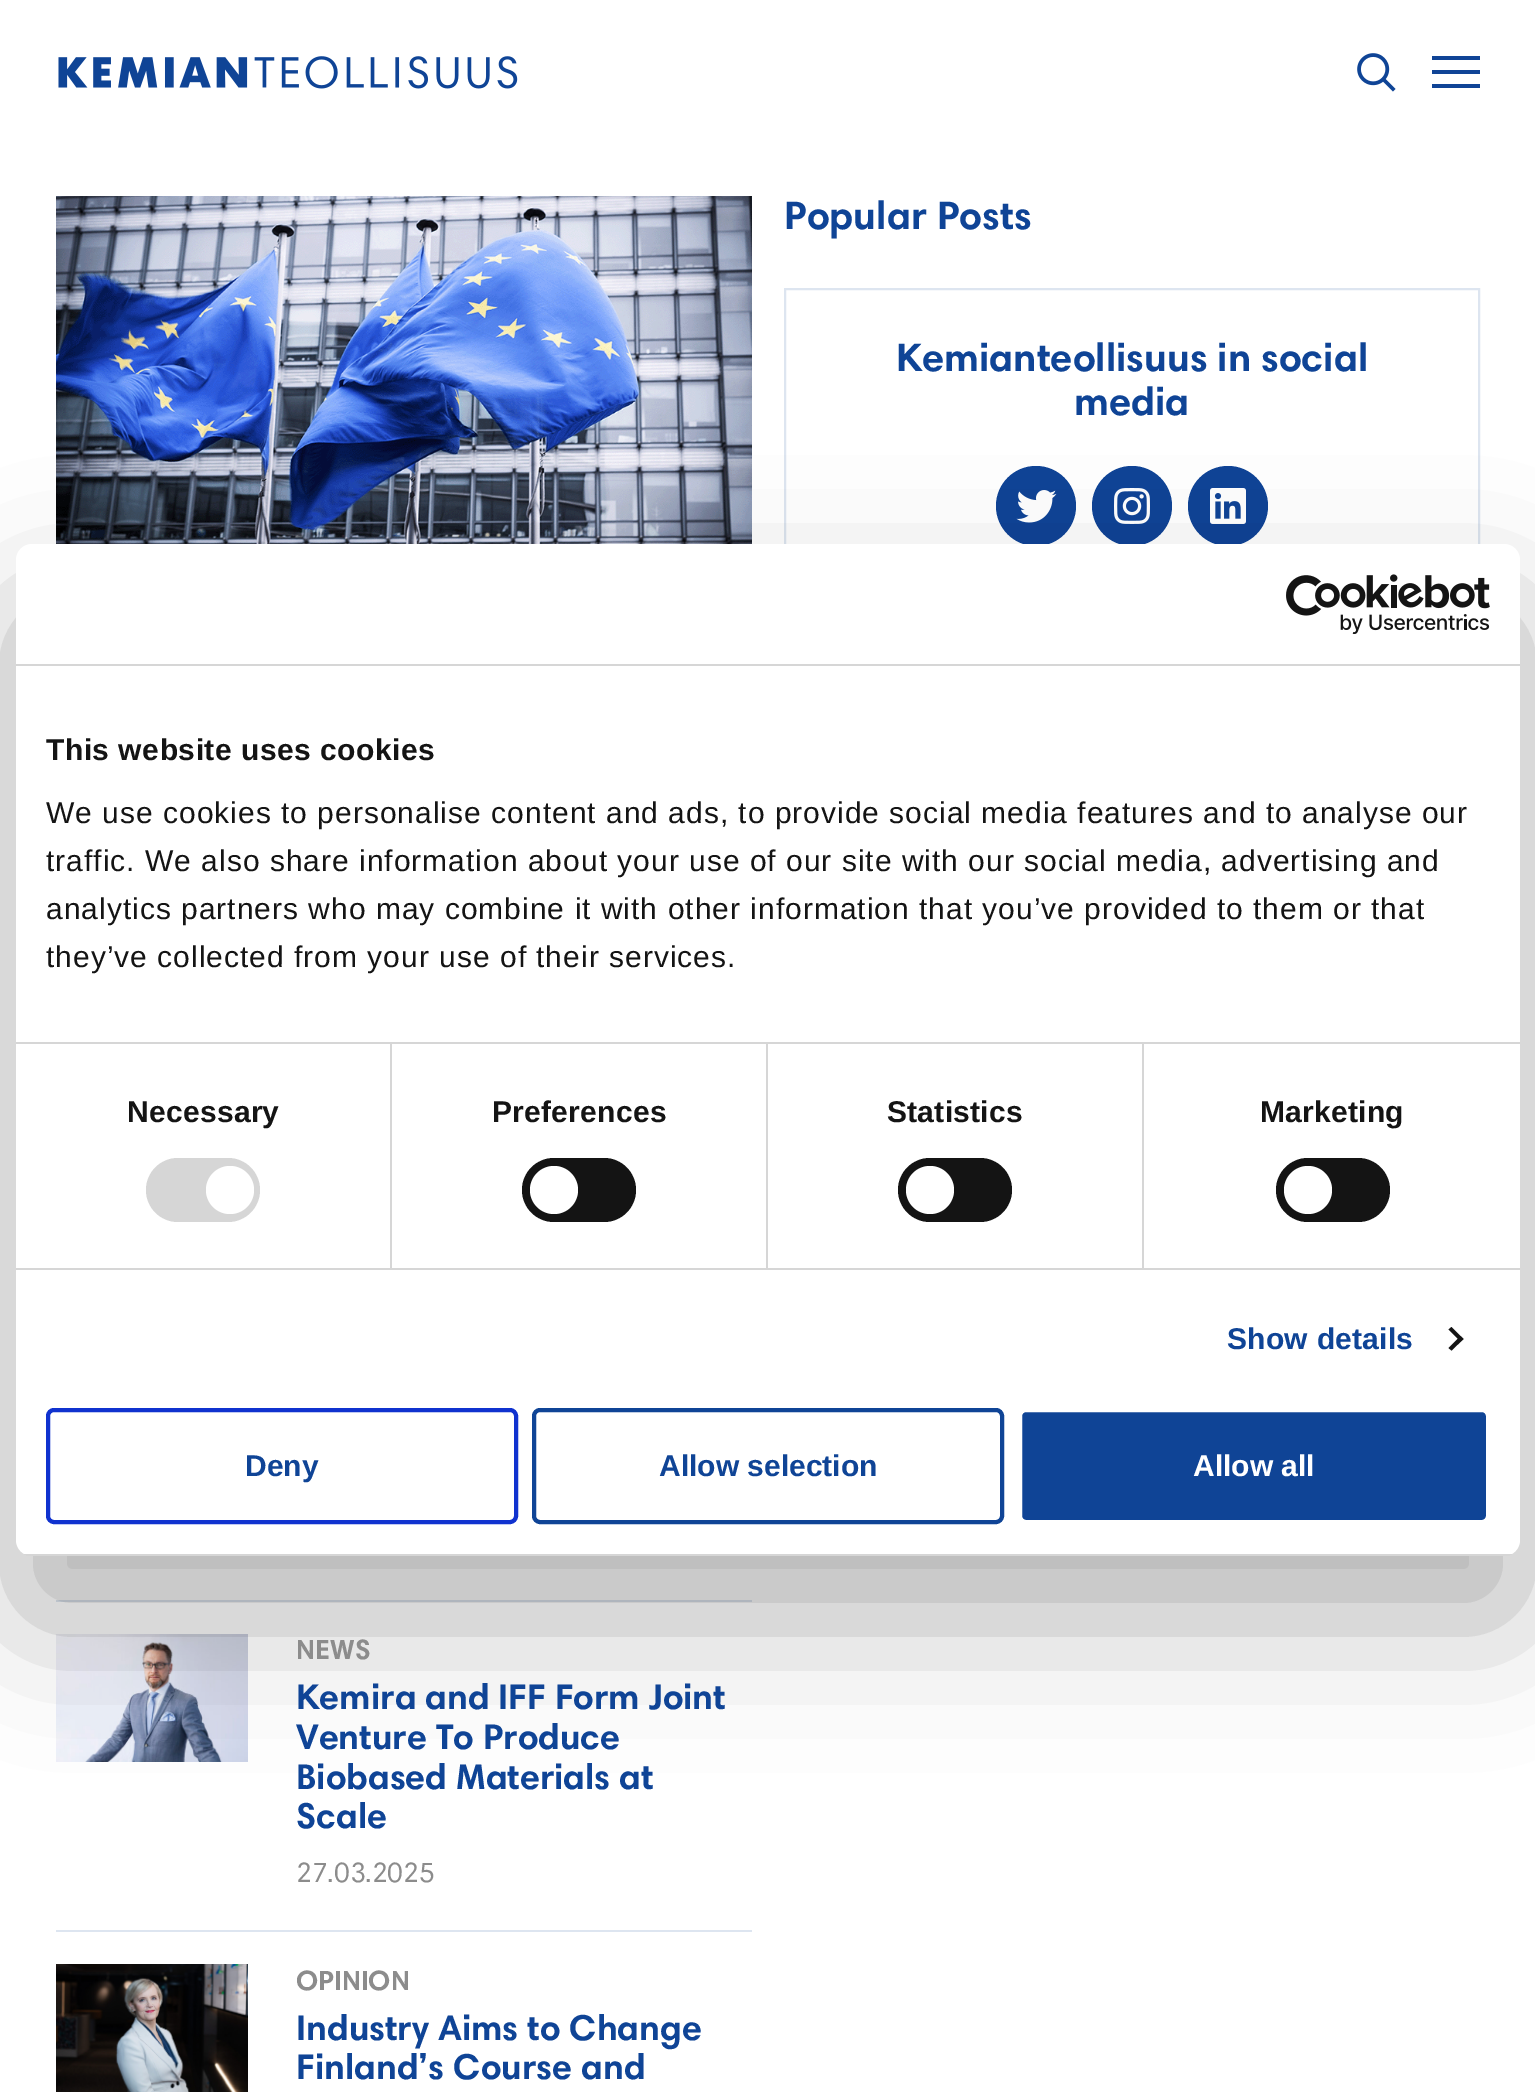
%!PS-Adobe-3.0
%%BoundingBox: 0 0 1535 2100
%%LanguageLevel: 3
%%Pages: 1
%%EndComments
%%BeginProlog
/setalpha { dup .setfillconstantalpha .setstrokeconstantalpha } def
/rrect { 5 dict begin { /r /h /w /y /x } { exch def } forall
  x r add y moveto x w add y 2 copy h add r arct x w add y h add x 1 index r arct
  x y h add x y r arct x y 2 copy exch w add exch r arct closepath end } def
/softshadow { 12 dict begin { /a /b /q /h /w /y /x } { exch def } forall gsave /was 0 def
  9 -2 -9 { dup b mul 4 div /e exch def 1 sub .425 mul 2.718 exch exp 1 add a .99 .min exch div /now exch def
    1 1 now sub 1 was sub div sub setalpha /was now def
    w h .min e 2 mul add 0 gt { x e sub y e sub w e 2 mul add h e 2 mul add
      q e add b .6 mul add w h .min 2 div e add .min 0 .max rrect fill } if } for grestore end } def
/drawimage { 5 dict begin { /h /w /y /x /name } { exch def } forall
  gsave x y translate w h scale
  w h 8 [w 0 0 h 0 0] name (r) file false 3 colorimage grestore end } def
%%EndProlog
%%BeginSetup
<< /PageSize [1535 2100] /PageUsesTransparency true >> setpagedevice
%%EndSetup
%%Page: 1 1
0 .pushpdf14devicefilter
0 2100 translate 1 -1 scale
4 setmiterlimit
1 setgray
0 0 1535 2100 rectfill
(images/1.raw) 58 56 460 33 drawimage
(images/2.raw) 1357 53 39 39 drawimage
0.059 0.267 0.588 setrgbcolor
1432 56 48 4 rectfill
1432 70 48 4 rectfill
1432 84 48 4 rectfill
0.867 0.898 0.941 setrgbcolor
2 setlinewidth
785 289 694 498 rectstroke
0.059 0.267 0.588 setrgbcolor
newpath 1036 506 40 0 360 arc closepath fill
(images/3.raw) 1016 490 41 33 drawimage
newpath 1132 506 40 0 360 arc closepath fill
(images/4.raw) 1114 488 36 36 drawimage
newpath 1228 506 40 0 360 arc closepath fill
(images/5.raw) 1210 488 36 36 drawimage
(images/6.raw) 56 196 696 348 drawimage
0.867 0.898 0.941 setrgbcolor
56 1600 696 2 rectfill
56 1930 696 2 rectfill
(images/7.raw) 56 1634 192 128 drawimage
(images/8.raw) 56 1964 192 128 drawimage
0 setgray
16 608 1504 1012 16 68 0.3 softshadow
1 setgray
16 544 1504 1012 16 rrect fill
0.839 setgray
16 664 1504 2 rectfill
(images/9.raw) 1286 574 204 60 drawimage
16 1042 1504 2 rectfill
16 1268 1504 2 rectfill
390 1044 2 224 rectfill
146 1158 114 64 32 rrect fill
1 setgray
newpath 230 1190 24 0 360 arc closepath fill
0.839 setgray
766 1044 2 224 rectfill
0.078 setgray
522 1158 114 64 32 rrect fill
1 setgray
newpath 554 1190 24 0 360 arc closepath fill
0.839 setgray
1142 1044 2 224 rectfill
0.078 setgray
898 1158 114 64 32 rrect fill
1 setgray
newpath 930 1190 24 0 360 arc closepath fill
0.078 setgray
1276 1158 114 64 32 rrect fill
1 setgray
newpath 1308 1190 24 0 360 arc closepath fill
0.078 setgray
newpath 1451.5 1327 moveto 1463.5 1339 lineto 1460.5 1341.5 lineto 1448.5 1329.5 lineto closepath fill
newpath 1460.5 1336 moveto 1463.5 1339 lineto 1451.5 1350.5 lineto 1448.5 1348 lineto closepath fill
gsave
16 544 1504 1012 16 rrect clip newpath
0.839 setgray
16 1554 1504 2 rectfill
grestore
0.063 0.196 0.812 setrgbcolor
4 setlinewidth
48 1410 468 112 6 rrect stroke
0.059 0.267 0.588 setrgbcolor
534 1410 468 112 6 rrect stroke
1020 1410 468 112 6 rrect gsave fill grestore
1 setgray
stroke
/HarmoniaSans-Regular [40 0 0 -40 0 0] selectfont
0.059 0.267 0.588 setrgbcolor
784 229 moveto (Popular Posts) show
896 371 moveto (Kemianteollisuus in social) show
1074 415 moveto (media) show
/HarmoniaSans-Regular [28 0 0 -28 0 0] selectfont
0.549 setgray
296 1659 moveto (NEWS) show
/HarmoniaSans-Regular [36 0 0 -36 0 0] selectfont
0.059 0.267 0.588 setrgbcolor
296 1709 moveto (Kemira and IFF Form Joint) show
296 1749 moveto (Venture To Produce) show
296 1789 moveto (Biobased Materials at) show
296 1828 moveto (Scale) show
/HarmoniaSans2-Regular [28 0 0 -28 0 0] selectfont
0.549 setgray
296 1882 moveto (27.03.2025) show
/HarmoniaSans-Regular [28 0 0 -28 0 0] selectfont
296 1990 moveto (OPINION) show
/HarmoniaSans-Regular [36 0 0 -36 0 0] selectfont
0.059 0.267 0.588 setrgbcolor
296 2040 moveto (Industry Aims to Change) show
296 2079 moveto (Finland’s Course and) show
/LiberationSans-Bold [30 0 0 -30 0 0] selectfont
0.078 setgray
46 760 moveto 0.5 0 (This website uses cookies) ashow
/LiberationSans-Regular [30 0 0 -30 0 0] selectfont
46 823 moveto 1 0 (We use cookies to personalise content and ads, to provide social media features and to analyse our) ashow
46 871 moveto 1 0 (traffic. We also share information about your use of our site with our social media, advertising and) ashow
46 919 moveto 1 0 (analytics partners who may combine it with other information that you’ve provided to them or that) ashow
46 967 moveto 1 0 (they’ve collected from your use of their services.) ashow
/LiberationSans-Bold [30 0 0 -30 0 0] selectfont
127 1122 moveto 0.25 0 (Necessary) ashow
492 1122 moveto 0.25 0 (Preferences) ashow
887 1122 moveto 0.25 0 (Statistics) ashow
1260 1122 moveto 0.25 0 (Marketing) ashow
0.059 0.267 0.588 setrgbcolor
1227 1349 moveto 0.25 0 (Show details) ashow
245 1476 moveto (Deny) show
659 1476 moveto (Allow selection) show
1 setgray
1193 1476 moveto (Allow all) show
.poppdf14devicefilter showpage
%%EOF
